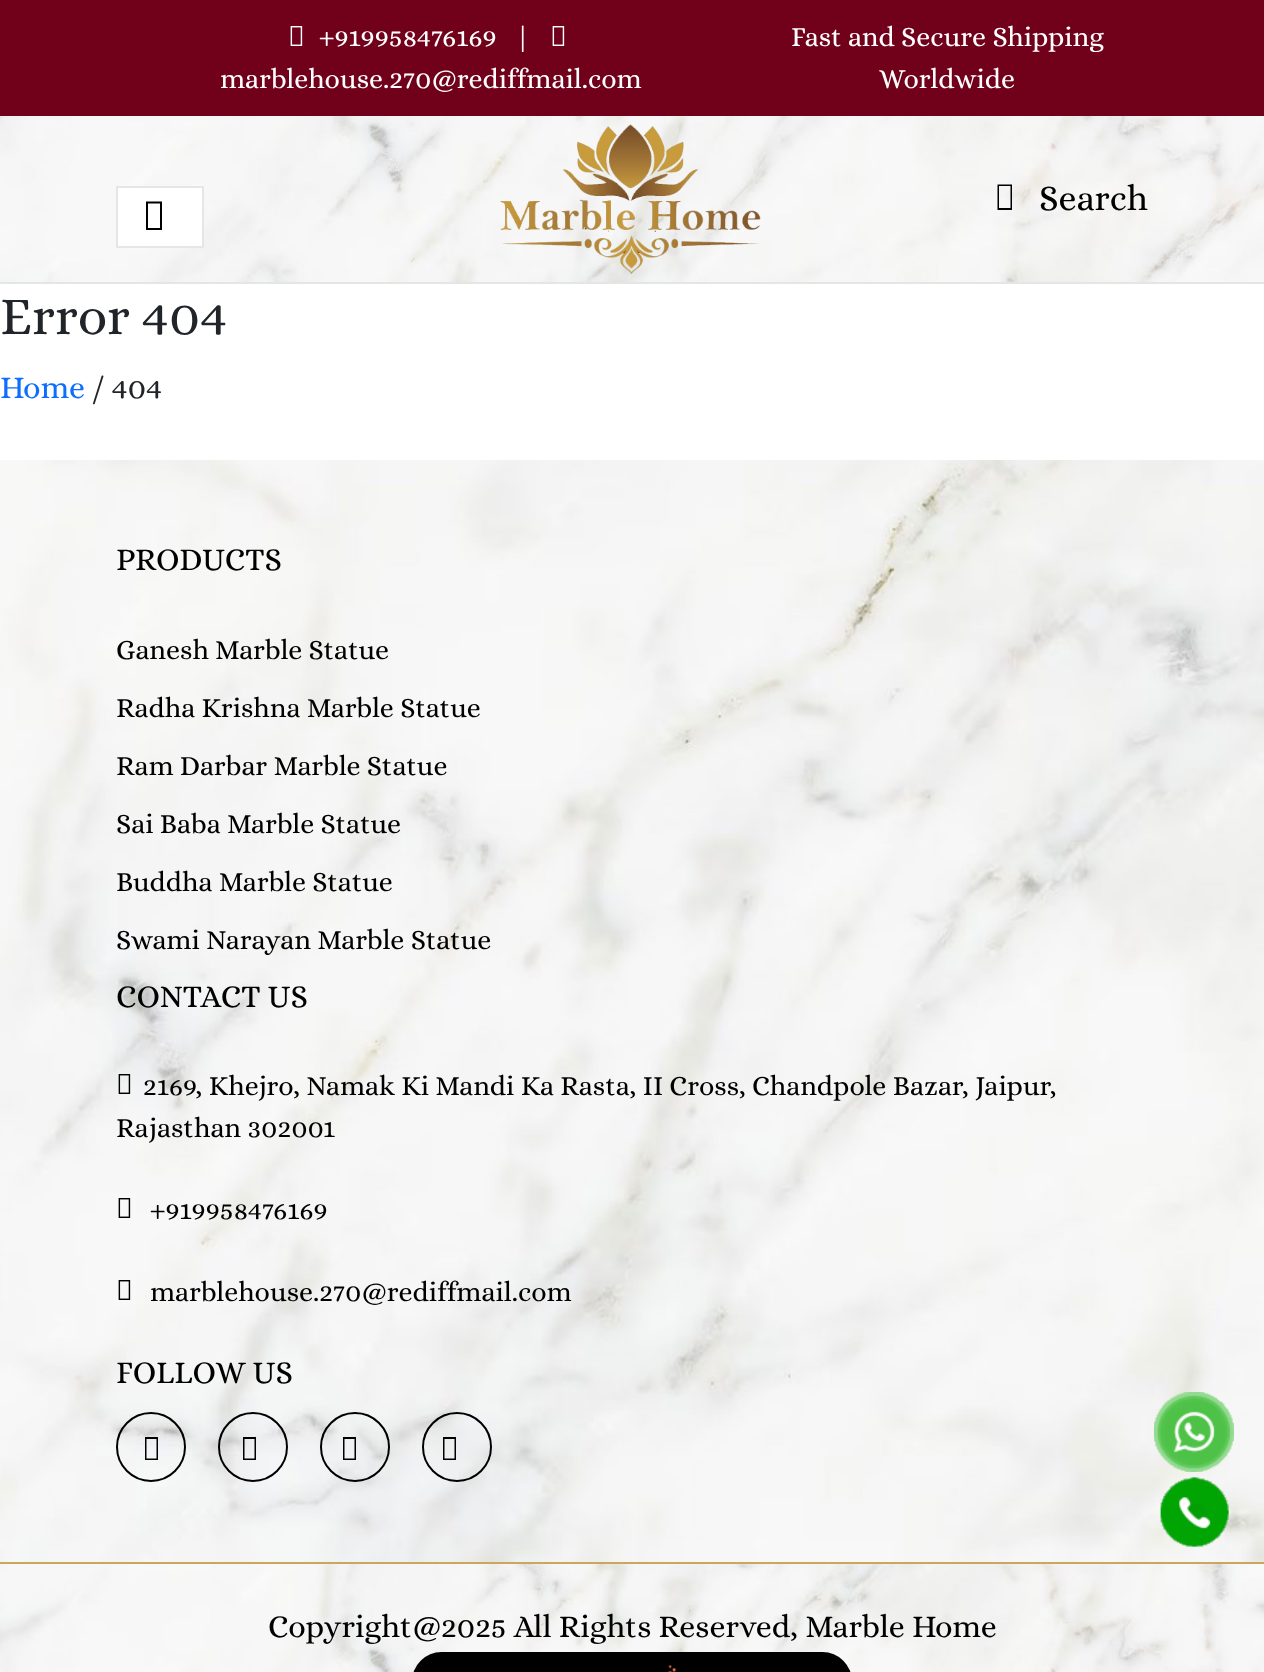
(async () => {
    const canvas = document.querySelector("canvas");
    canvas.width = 1264;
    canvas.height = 1672;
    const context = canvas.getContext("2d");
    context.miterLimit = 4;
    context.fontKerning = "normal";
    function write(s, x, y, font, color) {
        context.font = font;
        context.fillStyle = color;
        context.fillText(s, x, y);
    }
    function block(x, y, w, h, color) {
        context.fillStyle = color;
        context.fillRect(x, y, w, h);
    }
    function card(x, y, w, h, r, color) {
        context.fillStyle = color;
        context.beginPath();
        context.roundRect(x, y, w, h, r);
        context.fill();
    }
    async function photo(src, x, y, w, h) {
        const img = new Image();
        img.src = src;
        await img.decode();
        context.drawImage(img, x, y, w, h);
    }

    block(0, 0, 1264, 1672, "rgb(255, 255, 255)");
    await photo("media/1.png", 0, 116, 1264, 166);
    block(0, 0, 1264, 116, "rgb(113, 0, 27)");
    await photo("media/2.png", 290, 26, 13, 20);
    write("+919958476169", 319, 46, "28px Alice", "rgb(255, 255, 255)");
    write("|", 515, 46, "28px Alice", "rgb(255, 255, 255)");
    await photo("media/2.png", 552, 26, 13, 20);
    write("marblehouse.270@rediffmail.com", 220, 88, "28px Alice", "rgb(255, 255, 255)");
    write("Fast and Secure Shipping", 791, 46, "28px Alice", "rgb(255, 255, 255)");
    write("Worldwide", 879, 88, "28px Alice", "rgb(255, 255, 255)");
    context.beginPath();
    context.rect(117, 187, 86, 60);
    context.fill();
    context.strokeStyle = "rgb(230, 230, 230)";
    context.lineWidth = 2;
    context.stroke();
    context.fillStyle = "rgb(0, 0, 0)";
    context.beginPath();
    context.moveTo(146, 230);
    context.lineTo(146, 201.5);
    context.lineTo(162, 201.5);
    context.lineTo(162, 230);
    context.closePath();
    context.moveTo(148, 228);
    context.lineTo(160, 228);
    context.lineTo(160, 203.5);
    context.lineTo(148, 203.5);
    context.closePath();
    context.fill();
    block(0, 282, 1264, 2, "rgb(229, 229, 229)");
    await photo("media/3.png", 500, 124, 261, 150);
    context.fillStyle = "rgb(0, 0, 0)";
    context.beginPath();
    context.moveTo(997.5, 210);
    context.lineTo(997.5, 184.5);
    context.lineTo(1012, 184.5);
    context.lineTo(1012, 210);
    context.closePath();
    context.moveTo(999, 208);
    context.lineTo(1010.5, 208);
    context.lineTo(1010.5, 186);
    context.lineTo(999, 186);
    context.closePath();
    context.fill();
    write("Search", 1039, 210, "36px Alice", "rgb(0, 0, 0)");
    write("Error 404", 0, 334, "54px Alice", "rgb(33, 37, 41)");
    write("Home", 0, 398, "32px Alice", "rgb(13, 110, 253)");
    write("/ 404", 92, 398, "32px Alice", "rgb(33, 37, 41)");
    await photo("media/4.png", 0, 460, 1264, 1102);
    write("PRODUCTS", 116, 570, "32px Alice", "rgb(0, 0, 0)");
    write("Ganesh Marble Statue", 116, 659, "28px Alice", "rgb(0, 0, 0)");
    write("Radha Krishna Marble Statue", 116, 717, "28px Alice", "rgb(0, 0, 0)");
    write("Ram Darbar Marble Statue", 116, 775, "28px Alice", "rgb(0, 0, 0)");
    write("Sai Baba Marble Statue", 116, 833, "28px Alice", "rgb(0, 0, 0)");
    write("Buddha Marble Statue", 116, 891, "28px Alice", "rgb(0, 0, 0)");
    write("Swami Narayan Marble Statue", 116, 949, "28px Alice", "rgb(0, 0, 0)");
    write("CONTACT US", 116, 1007, "32px Alice", "rgb(0, 0, 0)");
    await photo("media/5.png", 118, 1074, 13, 20);
    write("2169, Khejro, Namak Ki Mandi Ka Rasta, II Cross, Chandpole Bazar, Jaipur,", 143, 1095, "28px Alice", "rgb(0, 0, 0)");
    write("Rajasthan 302001", 116, 1137, "28px Alice", "rgb(0, 0, 0)");
    await photo("media/6.png", 118, 1198, 13, 20);
    write("+919958476169", 150, 1219, "28px Alice", "rgb(0, 0, 0)");
    await photo("media/6.png", 118, 1280, 13, 20);
    write("marblehouse.270@rediffmail.com", 150, 1301, "28px Alice", "rgb(0, 0, 0)");
    write("FOLLOW US", 116, 1383, "32px Alice", "rgb(0, 0, 0)");
    context.beginPath();
    context.arc(151, 1447, 34, 0, Math.PI * 2);
    context.strokeStyle = "rgb(0, 0, 0)";
    context.stroke();
    context.beginPath();
    context.moveTo(145, 1460);
    context.lineTo(145, 1437);
    context.lineTo(158, 1437);
    context.lineTo(158, 1460);
    context.closePath();
    context.moveTo(146.5, 1458.5);
    context.lineTo(156.5, 1458.5);
    context.lineTo(156.5, 1439);
    context.lineTo(146.5, 1439);
    context.closePath();
    context.fill();
    context.beginPath();
    context.arc(253, 1447, 34, 0, Math.PI * 2);
    context.stroke();
    context.beginPath();
    context.moveTo(243, 1460);
    context.lineTo(243, 1437);
    context.lineTo(256, 1437);
    context.lineTo(256, 1460);
    context.closePath();
    context.moveTo(244.5, 1458.5);
    context.lineTo(254.5, 1458.5);
    context.lineTo(254.5, 1439);
    context.lineTo(244.5, 1439);
    context.closePath();
    context.fill();
    context.beginPath();
    context.arc(355, 1447, 34, 0, Math.PI * 2);
    context.stroke();
    context.beginPath();
    context.moveTo(343, 1460);
    context.lineTo(343, 1437);
    context.lineTo(356, 1437);
    context.lineTo(356, 1460);
    context.closePath();
    context.moveTo(344.5, 1458.5);
    context.lineTo(354.5, 1458.5);
    context.lineTo(354.5, 1439);
    context.lineTo(344.5, 1439);
    context.closePath();
    context.fill();
    context.beginPath();
    context.arc(457, 1447, 34, 0, Math.PI * 2);
    context.stroke();
    context.beginPath();
    context.moveTo(443, 1460);
    context.lineTo(443, 1437);
    context.lineTo(456, 1437);
    context.lineTo(456, 1460);
    context.closePath();
    context.moveTo(444.5, 1458.5);
    context.lineTo(454.5, 1458.5);
    context.lineTo(454.5, 1439);
    context.lineTo(444.5, 1439);
    context.closePath();
    context.fill();
    await photo("media/7.png", 0, 1564, 1264, 108);
    block(0, 1562, 1264, 2, "rgb(205, 166, 94)");
    write("Copyright@2025 All Rights Reserved, Marble Home", 268, 1637, "32px Alice", "rgb(0, 0, 0)");
    card(412, 1652, 440, 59, 39, "rgb(0, 0, 0)");
    await photo("media/8.png", 667, 1665, 10, 7);
    await photo("media/9.png", 1154, 1392, 80, 80);
    await photo("media/10.png", 1160, 1477, 69, 70);
})();
